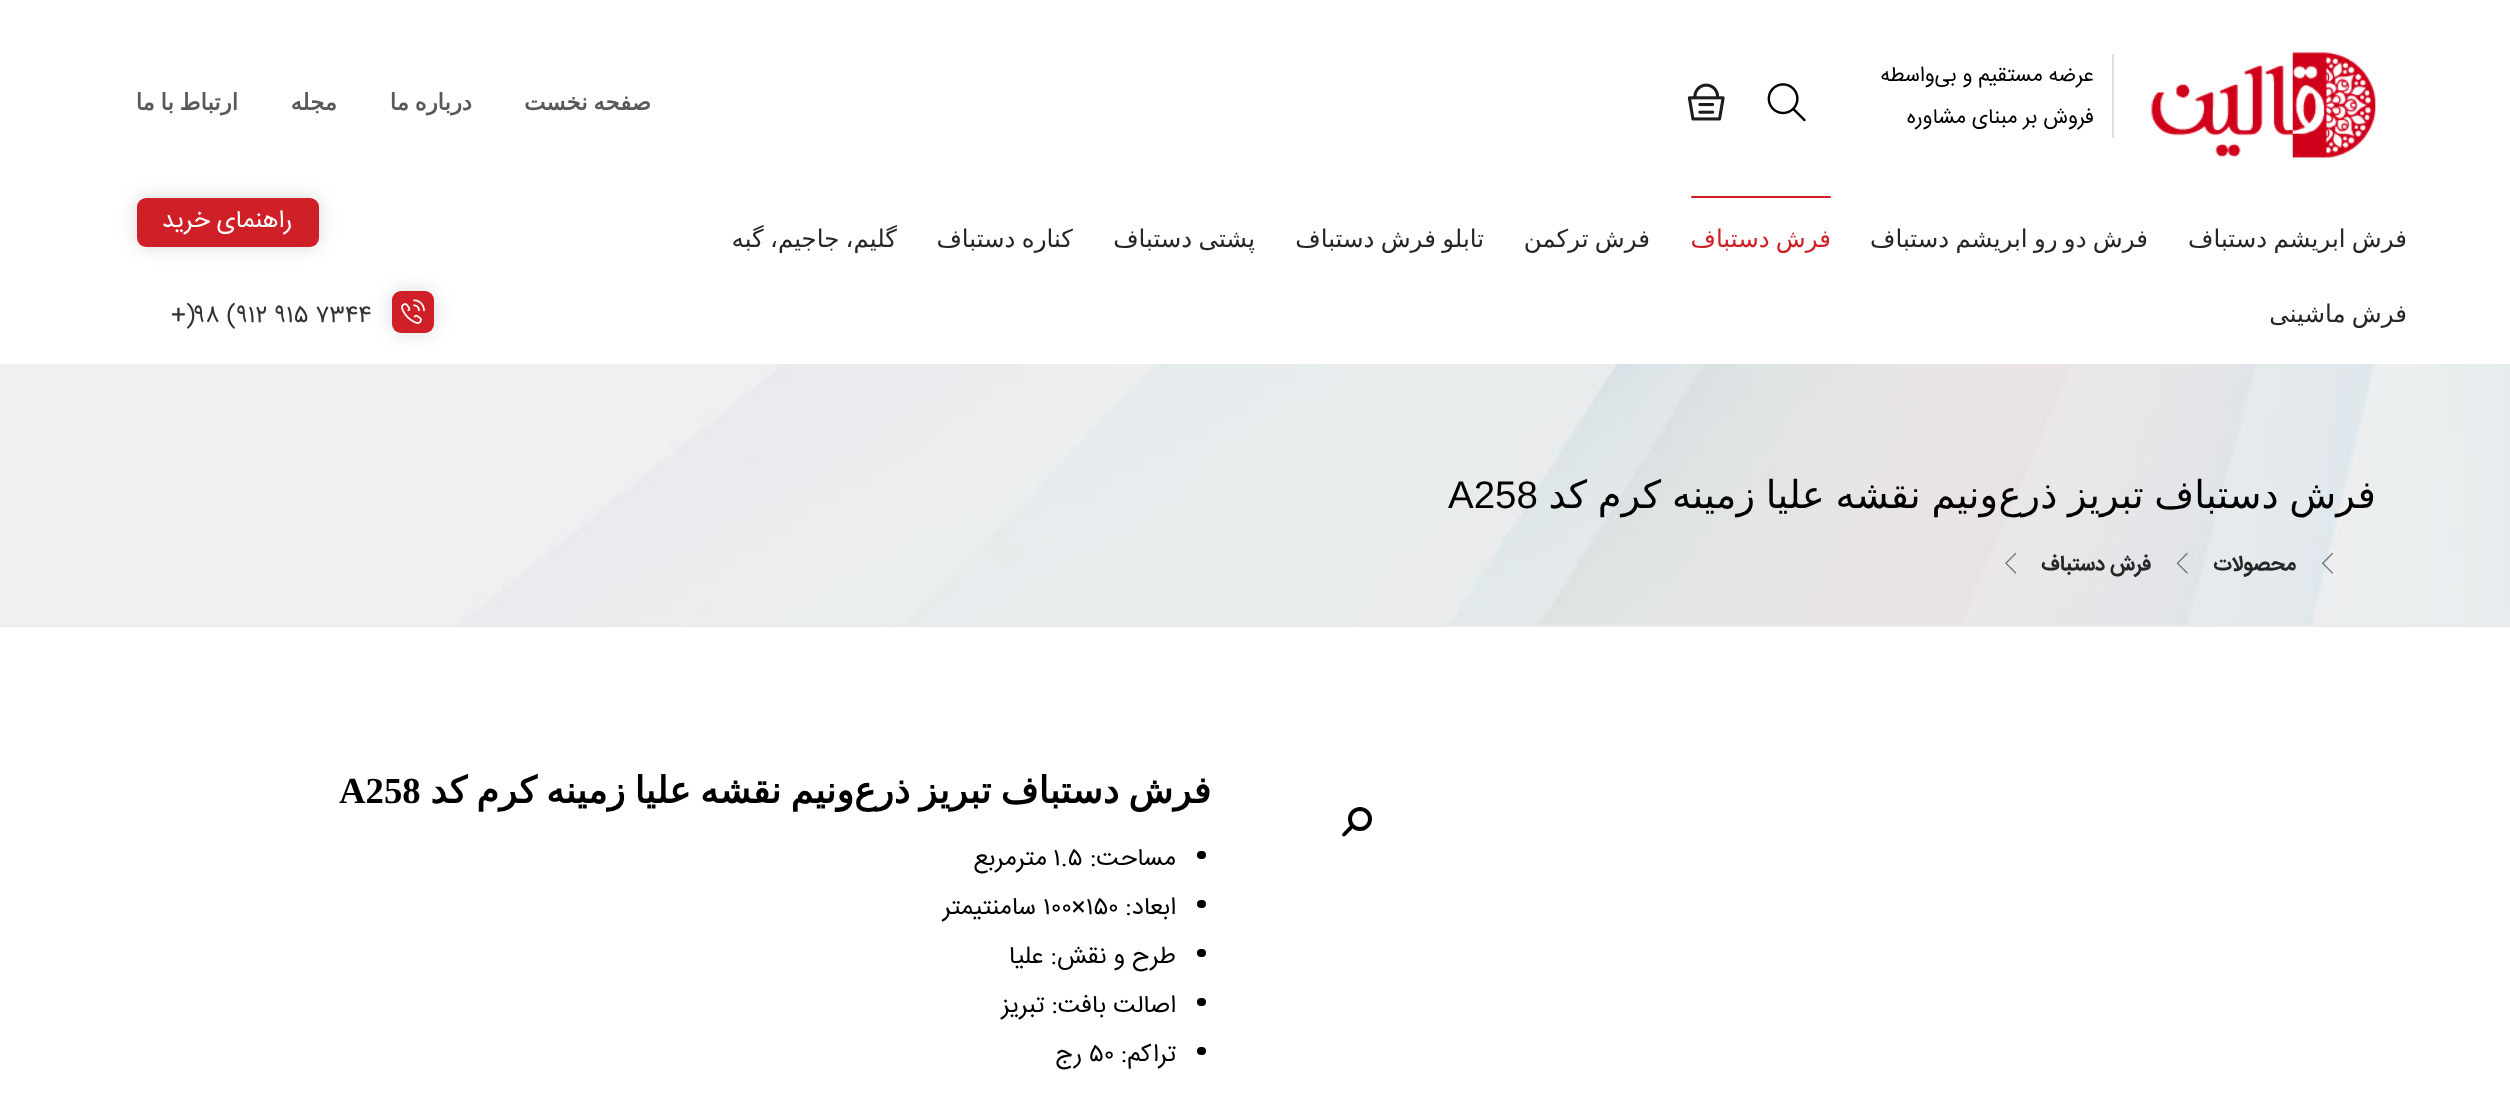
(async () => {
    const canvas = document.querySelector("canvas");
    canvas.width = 2510;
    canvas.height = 1096;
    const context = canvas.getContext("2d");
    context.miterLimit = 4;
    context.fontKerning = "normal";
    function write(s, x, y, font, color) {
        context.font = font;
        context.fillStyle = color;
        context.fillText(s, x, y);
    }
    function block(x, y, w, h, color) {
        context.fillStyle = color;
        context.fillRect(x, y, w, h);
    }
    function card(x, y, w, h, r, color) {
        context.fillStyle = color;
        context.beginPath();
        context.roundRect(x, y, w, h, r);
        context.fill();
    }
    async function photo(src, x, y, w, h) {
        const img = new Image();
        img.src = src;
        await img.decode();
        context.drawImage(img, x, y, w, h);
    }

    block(0, 0, 2510, 1096, "rgb(255, 255, 255)");
    await photo("media/1.png", 2151, 52, 225, 106);
    block(2112, 54, 2, 84, "rgb(224, 224, 224)");
    context.direction = "rtl";
    write("عرضه مستقیم و بی‌واسطه", 2094, 81, "21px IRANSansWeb", "rgb(0, 0, 0)");
    write("فروش بر مبنای مشاوره", 2094, 123, "21px IRANSansWeb", "rgb(0, 0, 0)");
    await photo("media/2.png", 1767, 83, 39, 39);
    await photo("media/3.png", 1687, 83, 38, 38);
    context.wordSpacing = "-1.5px";
    write("صفحه نخست", 651, 110, "bold 22.75px DejaVu Sans", "rgb(89, 89, 89)");
    write("درباره ما", 472, 110, "bold 22.75px DejaVu Sans", "rgb(89, 89, 89)");
    context.wordSpacing = "0px";
    write("مجله", 337, 110, "bold 22.75px DejaVu Sans", "rgb(89, 89, 89)");
    context.wordSpacing = "-1.5px";
    write("ارتباط با ما", 238, 110, "bold 22.75px DejaVu Sans", "rgb(89, 89, 89)");
    write("فرش ابریشم دستباف", 2407, 247, "24.5px DejaVu Sans", "rgb(38, 38, 38)");
    write("فرش دو رو ابریشم دستباف", 2148, 247, "24.5px DejaVu Sans", "rgb(38, 38, 38)");
    card(1691, 196, 140, 2, 1, "rgb(207, 32, 39)");
    write("فرش دستباف", 1831, 247, "24.5px DejaVu Sans", "rgb(207, 32, 39)");
    write("فرش ترکمن", 1650, 247, "24.5px DejaVu Sans", "rgb(38, 38, 38)");
    write("تابلو فرش دستباف", 1484, 247, "24.5px DejaVu Sans", "rgb(38, 38, 38)");
    write("پشتی دستباف", 1255, 247, "24.5px DejaVu Sans", "rgb(38, 38, 38)");
    write("کناره دستباف", 1073, 247, "24.5px DejaVu Sans", "rgb(38, 38, 38)");
    write("گلیم، جاجیم، گبه", 897, 247, "24.5px DejaVu Sans", "rgb(38, 38, 38)");
    write("فرش ماشینی", 2407, 322, "24.5px DejaVu Sans", "rgb(38, 38, 38)");
    context.fillStyle = "rgba(0, 0, 0, 0.15)";
    context.filter = "blur(9px)";
    context.beginPath();
    context.roundRect(137, 198, 182, 49, 9);
    context.fill();
    context.filter = "none";
    card(137, 198, 182, 49, 9, "rgb(207, 32, 39)");
    context.wordSpacing = "0px";
    write("راهنمای خرید", 292, 227, "24.5px IRANSansWeb", "rgb(255, 255, 255)");
    context.fillStyle = "rgba(0, 0, 0, 0.15)";
    context.filter = "blur(9px)";
    context.beginPath();
    context.roundRect(392, 291, 42, 42, 9);
    context.fill();
    context.filter = "none";
    card(392, 291, 42, 42, 9, "rgb(207, 32, 39)");
    await photo("media/4.png", 401, 299, 24, 25);
    context.direction = "ltr";
    write("+)۹۸ (۹۱۲ ۹۱۵ ۷۳۴۴", 171, 322, "24.5px IRANSansWeb", "rgb(51, 51, 51)");
    await photo("media/5.png", 0, 364, 2510, 261);
    block(0, 625, 2510, 2, "rgb(234, 234, 234)");
    context.wordSpacing = "-1.5px";
    context.direction = "rtl";
    write("فرش دستباف تبریز ذرع", 2376, 508, "38.5px DejaVu Sans", "rgb(0, 0, 0)");
    write("ونیم نقشه علیا زمینه کرم کد", 1998, 508, "38.5px DejaVu Sans", "rgb(0, 0, 0)");
    context.wordSpacing = "0px";
    context.direction = "ltr";
    write("‌‌‌A258", 1448, 508, "38.5px Liberation Sans", "rgb(0, 0, 0)");
    await photo("media/6.png", 2322, 552, 11, 22);
    context.direction = "rtl";
    write("محصولات", 2296, 570, "bold 21px IRANSansWeb", "rgb(38, 38, 38)");
    await photo("media/7.png", 2176, 552, 12, 22);
    write("فرش دستباف", 2151, 570, "bold 21px IRANSansWeb", "rgb(38, 38, 38)");
    await photo("media/8.png", 2005, 552, 12, 22);
    context.beginPath();
    context.arc(1360, 819, 10, 0, Math.PI * 2);
    context.strokeStyle = "rgb(0, 0, 0)";
    context.lineWidth = 4;
    context.stroke();
    context.fillStyle = "rgb(0, 0, 0)";
    context.beginPath();
    context.moveTo(1352.5, 826);
    context.bezierCurveTo(1354.5, 828, 1350, 831, 1349, 832);
    context.bezierCurveTo(1348, 833, 1344.5, 838, 1342.5, 836);
    context.bezierCurveTo(1341, 834, 1345.5, 830.5, 1346.5, 829.5);
    context.bezierCurveTo(1347.5, 828.5, 1350.5, 824, 1352.5, 826);
    context.closePath();
    context.fill();
    context.wordSpacing = "-2.5px";
    write("فرش دستباف تبریز ذرع", 1211, 803, "bold 36.75px DejaVu Sans", "rgb(0, 0, 0)");
    write("ونیم نقشه علیا زمینه کرم کد", 854, 803, "bold 36.75px DejaVu Sans", "rgb(0, 0, 0)");
    context.wordSpacing = "0px";
    context.direction = "ltr";
    write("‌‌‌A258", 339, 803, "bold 36.75px Liberation Serif", "rgb(0, 0, 0)");
    card(1197, 851, 9, 8, 4, "rgb(0, 0, 0)");
    context.direction = "rtl";
    write("مساحت:", 1176, 865, "24.5px IRANSansWeb", "rgb(0, 0, 0)");
    context.direction = "ltr";
    write("۱.۵", 1053, 865, "24.5px IRANSansWeb", "rgb(0, 0, 0)");
    context.direction = "rtl";
    write("مترمربع", 1047, 865, "24.5px IRANSansWeb", "rgb(0, 0, 0)");
    card(1197, 900, 9, 8, 4, "rgb(0, 0, 0)");
    write("ابعاد:", 1176, 914, "24.5px IRANSansWeb", "rgb(0, 0, 0)");
    context.direction = "ltr";
    write("۱۰۰×۱۵۰", 1043, 914, "24.5px IRANSansWeb", "rgb(0, 0, 0)");
    context.direction = "rtl";
    write("سامنتیمتر", 1036, 914, "24.5px IRANSansWeb", "rgb(0, 0, 0)");
    card(1197, 949, 9, 8, 4, "rgb(0, 0, 0)");
    write("طرح و نقش: علیا", 1176, 963, "24.5px IRANSansWeb", "rgb(0, 0, 0)");
    card(1197, 998, 9, 8, 4, "rgb(0, 0, 0)");
    write("اصالت بافت: تبریز", 1176, 1012, "24.5px IRANSansWeb", "rgb(0, 0, 0)");
    card(1197, 1047, 9, 8, 4, "rgb(0, 0, 0)");
    write("تراکم:", 1176, 1061, "24.5px IRANSansWeb", "rgb(0, 0, 0)");
    context.direction = "ltr";
    write("۵۰", 1089, 1061, "24.5px IRANSansWeb", "rgb(0, 0, 0)");
    context.direction = "rtl";
    write("رج", 1082, 1061, "24.5px IRANSansWeb", "rgb(0, 0, 0)");
})();
